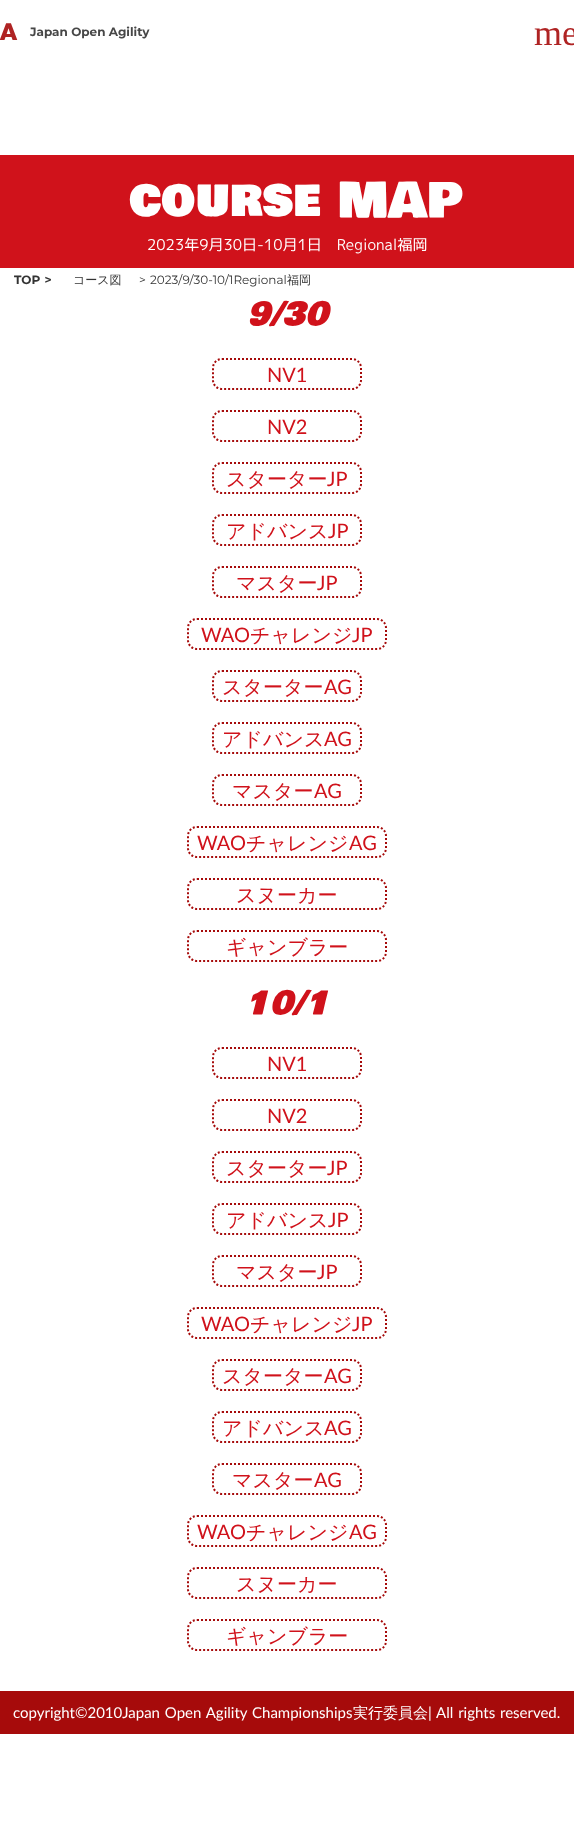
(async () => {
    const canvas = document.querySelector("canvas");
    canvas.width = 574;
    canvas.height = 1824;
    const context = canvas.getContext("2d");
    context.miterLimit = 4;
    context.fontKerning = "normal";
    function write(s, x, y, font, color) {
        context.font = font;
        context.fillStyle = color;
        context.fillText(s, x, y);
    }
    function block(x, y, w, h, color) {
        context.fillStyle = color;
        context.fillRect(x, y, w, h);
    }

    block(0, 0, 574, 1824, "rgb(255, 255, 255)");
    write("A", 0, 40, "24px Russo One", "rgb(175, 35, 35)");
    write("Japan Open Agility", 30, 36, "bold 12px Montserrat", "rgb(71, 71, 71)");
    write("me", 534, 45, "36px Liberation Serif", "rgb(175, 35, 35)");
    block(0, 155, 574, 113, "rgb(208, 18, 27)");
    context.wordSpacing = "2px";
    write("course MAP", 129, 217, "48px Bowlby One SC", "rgb(255, 255, 255)");
    context.wordSpacing = "0px";
    write("2023年9月30日-10月1日　Regional福岡", 147, 250, "15px 'M PLUS 1p'", "rgb(255, 255, 255)");
    context.wordSpacing = "1px";
    write("TOP >", 14, 284, "bold 12px Montserrat", "rgb(51, 51, 51)");
    context.wordSpacing = "0px";
    write("コース図", 73, 284, "500 12px WenQuanYi Zen Hei", "rgb(51, 51, 51)");
    context.wordSpacing = "1px";
    write("> 2023/9/30-10/1Regional", 139, 284, "12px Montserrat", "rgb(51, 51, 51)");
    context.wordSpacing = "0px";
    write("福岡", 287, 284, "500 12px WenQuanYi Zen Hei", "rgb(51, 51, 51)");
    write("9/30", 247, 325, "italic 32px Bowlby One SC", "rgb(208, 18, 27)");
    context.beginPath();
    context.moveTo(222, 359);
    context.lineTo(352, 359);
    context.bezierCurveTo(357, 359, 361, 363, 361, 368);
    context.lineTo(361, 380);
    context.bezierCurveTo(361, 385, 357, 389, 352, 389);
    context.lineTo(222, 389);
    context.bezierCurveTo(217, 389, 213, 385, 213, 380);
    context.lineTo(213, 368);
    context.bezierCurveTo(213, 363, 217, 359, 222, 359);
    context.closePath();
    context.strokeStyle = "rgb(166, 11, 11)";
    context.lineWidth = 2;
    context.setLineDash([2, 2]);
    context.stroke();
    write("NV1", 267, 382, "20px Lato", "rgb(208, 18, 27)");
    context.beginPath();
    context.moveTo(222, 411);
    context.lineTo(352, 411);
    context.bezierCurveTo(357, 411, 361, 415, 361, 420);
    context.lineTo(361, 432);
    context.bezierCurveTo(361, 437, 357, 441, 352, 441);
    context.lineTo(222, 441);
    context.bezierCurveTo(217, 441, 213, 437, 213, 432);
    context.lineTo(213, 420);
    context.bezierCurveTo(213, 415, 217, 411, 222, 411);
    context.closePath();
    context.stroke();
    write("NV2", 267, 434, "20px Lato", "rgb(208, 18, 27)");
    context.beginPath();
    context.moveTo(222, 463);
    context.lineTo(352, 463);
    context.bezierCurveTo(357, 463, 361, 467, 361, 472);
    context.lineTo(361, 484);
    context.bezierCurveTo(361, 489, 357, 493, 352, 493);
    context.lineTo(222, 493);
    context.bezierCurveTo(217, 493, 213, 489, 213, 484);
    context.lineTo(213, 472);
    context.bezierCurveTo(213, 467, 217, 463, 222, 463);
    context.closePath();
    context.stroke();
    write("スターター", 226, 486, "500 20px WenQuanYi Zen Hei", "rgb(208, 18, 27)");
    write("JP", 327, 486, "20px Lato", "rgb(208, 18, 27)");
    context.beginPath();
    context.moveTo(222, 515);
    context.lineTo(352, 515);
    context.bezierCurveTo(357, 515, 361, 519, 361, 524);
    context.lineTo(361, 536);
    context.bezierCurveTo(361, 541, 357, 545, 352, 545);
    context.lineTo(222, 545);
    context.bezierCurveTo(217, 545, 213, 541, 213, 536);
    context.lineTo(213, 524);
    context.bezierCurveTo(213, 519, 217, 515, 222, 515);
    context.closePath();
    context.stroke();
    write("アドバンス", 226, 538, "500 20px WenQuanYi Zen Hei", "rgb(208, 18, 27)");
    write("JP", 328, 538, "20px Lato", "rgb(208, 18, 27)");
    context.beginPath();
    context.moveTo(222, 567);
    context.lineTo(352, 567);
    context.bezierCurveTo(357, 567, 361, 571, 361, 576);
    context.lineTo(361, 588);
    context.bezierCurveTo(361, 593, 357, 597, 352, 597);
    context.lineTo(222, 597);
    context.bezierCurveTo(217, 597, 213, 593, 213, 588);
    context.lineTo(213, 576);
    context.bezierCurveTo(213, 571, 217, 567, 222, 567);
    context.closePath();
    context.stroke();
    write("マスター", 236, 590, "500 20px WenQuanYi Zen Hei", "rgb(208, 18, 27)");
    write("JP", 317, 590, "20px Lato", "rgb(208, 18, 27)");
    context.beginPath();
    context.moveTo(197, 619);
    context.lineTo(377, 619);
    context.bezierCurveTo(382, 619, 386, 623, 386, 628);
    context.lineTo(386, 640);
    context.bezierCurveTo(386, 645, 382, 649, 377, 649);
    context.lineTo(197, 649);
    context.bezierCurveTo(192, 649, 188, 645, 188, 640);
    context.lineTo(188, 628);
    context.bezierCurveTo(188, 623, 192, 619, 197, 619);
    context.closePath();
    context.stroke();
    write("WAO", 201, 642, "20px Lato", "rgb(208, 18, 27)");
    write("チャレンジ", 250, 642, "500 20px WenQuanYi Zen Hei", "rgb(208, 18, 27)");
    write("JP", 352, 642, "20px Lato", "rgb(208, 18, 27)");
    context.beginPath();
    context.moveTo(222, 671);
    context.lineTo(352, 671);
    context.bezierCurveTo(357, 671, 361, 675, 361, 680);
    context.lineTo(361, 692);
    context.bezierCurveTo(361, 697, 357, 701, 352, 701);
    context.lineTo(222, 701);
    context.bezierCurveTo(217, 701, 213, 697, 213, 692);
    context.lineTo(213, 680);
    context.bezierCurveTo(213, 675, 217, 671, 222, 671);
    context.closePath();
    context.stroke();
    write("スターター", 222, 694, "500 20px WenQuanYi Zen Hei", "rgb(208, 18, 27)");
    write("AG", 324, 694, "20px Lato", "rgb(208, 18, 27)");
    context.beginPath();
    context.moveTo(222, 723);
    context.lineTo(352, 723);
    context.bezierCurveTo(357, 723, 361, 727, 361, 732);
    context.lineTo(361, 744);
    context.bezierCurveTo(361, 749, 357, 753, 352, 753);
    context.lineTo(222, 753);
    context.bezierCurveTo(217, 753, 213, 749, 213, 744);
    context.lineTo(213, 732);
    context.bezierCurveTo(213, 727, 217, 723, 222, 723);
    context.closePath();
    context.stroke();
    write("アドバンス", 222, 746, "500 20px WenQuanYi Zen Hei", "rgb(208, 18, 27)");
    write("AG", 324, 746, "20px Lato", "rgb(208, 18, 27)");
    context.beginPath();
    context.moveTo(222, 775);
    context.lineTo(352, 775);
    context.bezierCurveTo(357, 775, 361, 779, 361, 784);
    context.lineTo(361, 796);
    context.bezierCurveTo(361, 801, 357, 805, 352, 805);
    context.lineTo(222, 805);
    context.bezierCurveTo(217, 805, 213, 801, 213, 796);
    context.lineTo(213, 784);
    context.bezierCurveTo(213, 779, 217, 775, 222, 775);
    context.closePath();
    context.stroke();
    write("マスター", 232, 798, "500 20px WenQuanYi Zen Hei", "rgb(208, 18, 27)");
    write("AG", 314, 798, "20px Lato", "rgb(208, 18, 27)");
    context.beginPath();
    context.moveTo(197, 827);
    context.lineTo(377, 827);
    context.bezierCurveTo(382, 827, 386, 831, 386, 836);
    context.lineTo(386, 848);
    context.bezierCurveTo(386, 853, 382, 857, 377, 857);
    context.lineTo(197, 857);
    context.bezierCurveTo(192, 857, 188, 853, 188, 848);
    context.lineTo(188, 836);
    context.bezierCurveTo(188, 831, 192, 827, 197, 827);
    context.closePath();
    context.stroke();
    write("WAO", 197, 850, "20px Lato", "rgb(208, 18, 27)");
    write("チャレンジ", 246, 850, "500 20px WenQuanYi Zen Hei", "rgb(208, 18, 27)");
    write("AG", 349, 850, "20px Lato", "rgb(208, 18, 27)");
    context.beginPath();
    context.moveTo(197, 879);
    context.lineTo(377, 879);
    context.bezierCurveTo(382, 879, 386, 883, 386, 888);
    context.lineTo(386, 900);
    context.bezierCurveTo(386, 905, 382, 909, 377, 909);
    context.lineTo(197, 909);
    context.bezierCurveTo(192, 909, 188, 905, 188, 900);
    context.lineTo(188, 888);
    context.bezierCurveTo(188, 883, 192, 879, 197, 879);
    context.closePath();
    context.stroke();
    write("スヌーカー", 236, 902, "500 20px WenQuanYi Zen Hei", "rgb(208, 18, 27)");
    context.beginPath();
    context.moveTo(197, 931);
    context.lineTo(377, 931);
    context.bezierCurveTo(382, 931, 386, 935, 386, 940);
    context.lineTo(386, 952);
    context.bezierCurveTo(386, 957, 382, 961, 377, 961);
    context.lineTo(197, 961);
    context.bezierCurveTo(192, 961, 188, 957, 188, 952);
    context.lineTo(188, 940);
    context.bezierCurveTo(188, 935, 192, 931, 197, 931);
    context.closePath();
    context.stroke();
    write("ギャンブラー", 226, 954, "500 20px WenQuanYi Zen Hei", "rgb(208, 18, 27)");
    write("10/1", 245, 1014, "italic 32px Bowlby One SC", "rgb(208, 18, 27)");
    context.beginPath();
    context.moveTo(222, 1048);
    context.lineTo(352, 1048);
    context.bezierCurveTo(357, 1048, 361, 1052, 361, 1057);
    context.lineTo(361, 1069);
    context.bezierCurveTo(361, 1074, 357, 1078, 352, 1078);
    context.lineTo(222, 1078);
    context.bezierCurveTo(217, 1078, 213, 1074, 213, 1069);
    context.lineTo(213, 1057);
    context.bezierCurveTo(213, 1052, 217, 1048, 222, 1048);
    context.closePath();
    context.stroke();
    write("NV1", 267, 1071, "20px Lato", "rgb(208, 18, 27)");
    context.beginPath();
    context.moveTo(222, 1100);
    context.lineTo(352, 1100);
    context.bezierCurveTo(357, 1100, 361, 1104, 361, 1109);
    context.lineTo(361, 1121);
    context.bezierCurveTo(361, 1126, 357, 1130, 352, 1130);
    context.lineTo(222, 1130);
    context.bezierCurveTo(217, 1130, 213, 1126, 213, 1121);
    context.lineTo(213, 1109);
    context.bezierCurveTo(213, 1104, 217, 1100, 222, 1100);
    context.closePath();
    context.stroke();
    write("NV2", 267, 1123, "20px Lato", "rgb(208, 18, 27)");
    context.beginPath();
    context.moveTo(222, 1152);
    context.lineTo(352, 1152);
    context.bezierCurveTo(357, 1152, 361, 1156, 361, 1161);
    context.lineTo(361, 1173);
    context.bezierCurveTo(361, 1178, 357, 1182, 352, 1182);
    context.lineTo(222, 1182);
    context.bezierCurveTo(217, 1182, 213, 1178, 213, 1173);
    context.lineTo(213, 1161);
    context.bezierCurveTo(213, 1156, 217, 1152, 222, 1152);
    context.closePath();
    context.stroke();
    write("スターター", 226, 1175, "500 20px WenQuanYi Zen Hei", "rgb(208, 18, 27)");
    write("JP", 327, 1175, "20px Lato", "rgb(208, 18, 27)");
    context.beginPath();
    context.moveTo(222, 1204);
    context.lineTo(352, 1204);
    context.bezierCurveTo(357, 1204, 361, 1208, 361, 1213);
    context.lineTo(361, 1225);
    context.bezierCurveTo(361, 1230, 357, 1234, 352, 1234);
    context.lineTo(222, 1234);
    context.bezierCurveTo(217, 1234, 213, 1230, 213, 1225);
    context.lineTo(213, 1213);
    context.bezierCurveTo(213, 1208, 217, 1204, 222, 1204);
    context.closePath();
    context.stroke();
    write("アドバンス", 226, 1227, "500 20px WenQuanYi Zen Hei", "rgb(208, 18, 27)");
    write("JP", 328, 1227, "20px Lato", "rgb(208, 18, 27)");
    context.beginPath();
    context.moveTo(222, 1256);
    context.lineTo(352, 1256);
    context.bezierCurveTo(357, 1256, 361, 1260, 361, 1265);
    context.lineTo(361, 1277);
    context.bezierCurveTo(361, 1282, 357, 1286, 352, 1286);
    context.lineTo(222, 1286);
    context.bezierCurveTo(217, 1286, 213, 1282, 213, 1277);
    context.lineTo(213, 1265);
    context.bezierCurveTo(213, 1260, 217, 1256, 222, 1256);
    context.closePath();
    context.stroke();
    write("マスター", 236, 1279, "500 20px WenQuanYi Zen Hei", "rgb(208, 18, 27)");
    write("JP", 317, 1279, "20px Lato", "rgb(208, 18, 27)");
    context.beginPath();
    context.moveTo(197, 1308);
    context.lineTo(377, 1308);
    context.bezierCurveTo(382, 1308, 386, 1312, 386, 1317);
    context.lineTo(386, 1329);
    context.bezierCurveTo(386, 1334, 382, 1338, 377, 1338);
    context.lineTo(197, 1338);
    context.bezierCurveTo(192, 1338, 188, 1334, 188, 1329);
    context.lineTo(188, 1317);
    context.bezierCurveTo(188, 1312, 192, 1308, 197, 1308);
    context.closePath();
    context.stroke();
    write("WAO", 201, 1331, "20px Lato", "rgb(208, 18, 27)");
    write("チャレンジ", 250, 1331, "500 20px WenQuanYi Zen Hei", "rgb(208, 18, 27)");
    write("JP", 352, 1331, "20px Lato", "rgb(208, 18, 27)");
    context.beginPath();
    context.moveTo(222, 1360);
    context.lineTo(352, 1360);
    context.bezierCurveTo(357, 1360, 361, 1364, 361, 1369);
    context.lineTo(361, 1381);
    context.bezierCurveTo(361, 1386, 357, 1390, 352, 1390);
    context.lineTo(222, 1390);
    context.bezierCurveTo(217, 1390, 213, 1386, 213, 1381);
    context.lineTo(213, 1369);
    context.bezierCurveTo(213, 1364, 217, 1360, 222, 1360);
    context.closePath();
    context.stroke();
    write("スターター", 222, 1383, "500 20px WenQuanYi Zen Hei", "rgb(208, 18, 27)");
    write("AG", 324, 1383, "20px Lato", "rgb(208, 18, 27)");
    context.beginPath();
    context.moveTo(222, 1412);
    context.lineTo(352, 1412);
    context.bezierCurveTo(357, 1412, 361, 1416, 361, 1421);
    context.lineTo(361, 1433);
    context.bezierCurveTo(361, 1438, 357, 1442, 352, 1442);
    context.lineTo(222, 1442);
    context.bezierCurveTo(217, 1442, 213, 1438, 213, 1433);
    context.lineTo(213, 1421);
    context.bezierCurveTo(213, 1416, 217, 1412, 222, 1412);
    context.closePath();
    context.stroke();
    write("アドバンス", 222, 1435, "500 20px WenQuanYi Zen Hei", "rgb(208, 18, 27)");
    write("AG", 324, 1435, "20px Lato", "rgb(208, 18, 27)");
    context.beginPath();
    context.moveTo(222, 1464);
    context.lineTo(352, 1464);
    context.bezierCurveTo(357, 1464, 361, 1468, 361, 1473);
    context.lineTo(361, 1485);
    context.bezierCurveTo(361, 1490, 357, 1494, 352, 1494);
    context.lineTo(222, 1494);
    context.bezierCurveTo(217, 1494, 213, 1490, 213, 1485);
    context.lineTo(213, 1473);
    context.bezierCurveTo(213, 1468, 217, 1464, 222, 1464);
    context.closePath();
    context.stroke();
    write("マスター", 232, 1487, "500 20px WenQuanYi Zen Hei", "rgb(208, 18, 27)");
    write("AG", 314, 1487, "20px Lato", "rgb(208, 18, 27)");
    context.beginPath();
    context.moveTo(197, 1516);
    context.lineTo(377, 1516);
    context.bezierCurveTo(382, 1516, 386, 1520, 386, 1525);
    context.lineTo(386, 1537);
    context.bezierCurveTo(386, 1542, 382, 1546, 377, 1546);
    context.lineTo(197, 1546);
    context.bezierCurveTo(192, 1546, 188, 1542, 188, 1537);
    context.lineTo(188, 1525);
    context.bezierCurveTo(188, 1520, 192, 1516, 197, 1516);
    context.closePath();
    context.stroke();
    write("WAO", 197, 1539, "20px Lato", "rgb(208, 18, 27)");
    write("チャレンジ", 246, 1539, "500 20px WenQuanYi Zen Hei", "rgb(208, 18, 27)");
    write("AG", 349, 1539, "20px Lato", "rgb(208, 18, 27)");
    context.beginPath();
    context.moveTo(197, 1568);
    context.lineTo(377, 1568);
    context.bezierCurveTo(382, 1568, 386, 1572, 386, 1577);
    context.lineTo(386, 1589);
    context.bezierCurveTo(386, 1594, 382, 1598, 377, 1598);
    context.lineTo(197, 1598);
    context.bezierCurveTo(192, 1598, 188, 1594, 188, 1589);
    context.lineTo(188, 1577);
    context.bezierCurveTo(188, 1572, 192, 1568, 197, 1568);
    context.closePath();
    context.stroke();
    write("スヌーカー", 236, 1591, "500 20px WenQuanYi Zen Hei", "rgb(208, 18, 27)");
    context.beginPath();
    context.moveTo(197, 1620);
    context.lineTo(377, 1620);
    context.bezierCurveTo(382, 1620, 386, 1624, 386, 1629);
    context.lineTo(386, 1641);
    context.bezierCurveTo(386, 1646, 382, 1650, 377, 1650);
    context.lineTo(197, 1650);
    context.bezierCurveTo(192, 1650, 188, 1646, 188, 1641);
    context.lineTo(188, 1629);
    context.bezierCurveTo(188, 1624, 192, 1620, 197, 1620);
    context.closePath();
    context.stroke();
    write("ギャンブラー", 226, 1643, "500 20px WenQuanYi Zen Hei", "rgb(208, 18, 27)");
    block(0, 1691, 574, 43, "rgb(166, 11, 11)");
    context.wordSpacing = "1px";
    write("copyright©2010Japan Open Agility Championships", 13, 1718, "15px Lato", "rgb(255, 255, 255)");
    context.wordSpacing = "0px";
    write("実行委員会", 353, 1718, "500 15px WenQuanYi Zen Hei", "rgb(255, 255, 255)");
    context.wordSpacing = "1px";
    write("| All rights reserved.", 428, 1718, "15px Lato", "rgb(255, 255, 255)");
})();
